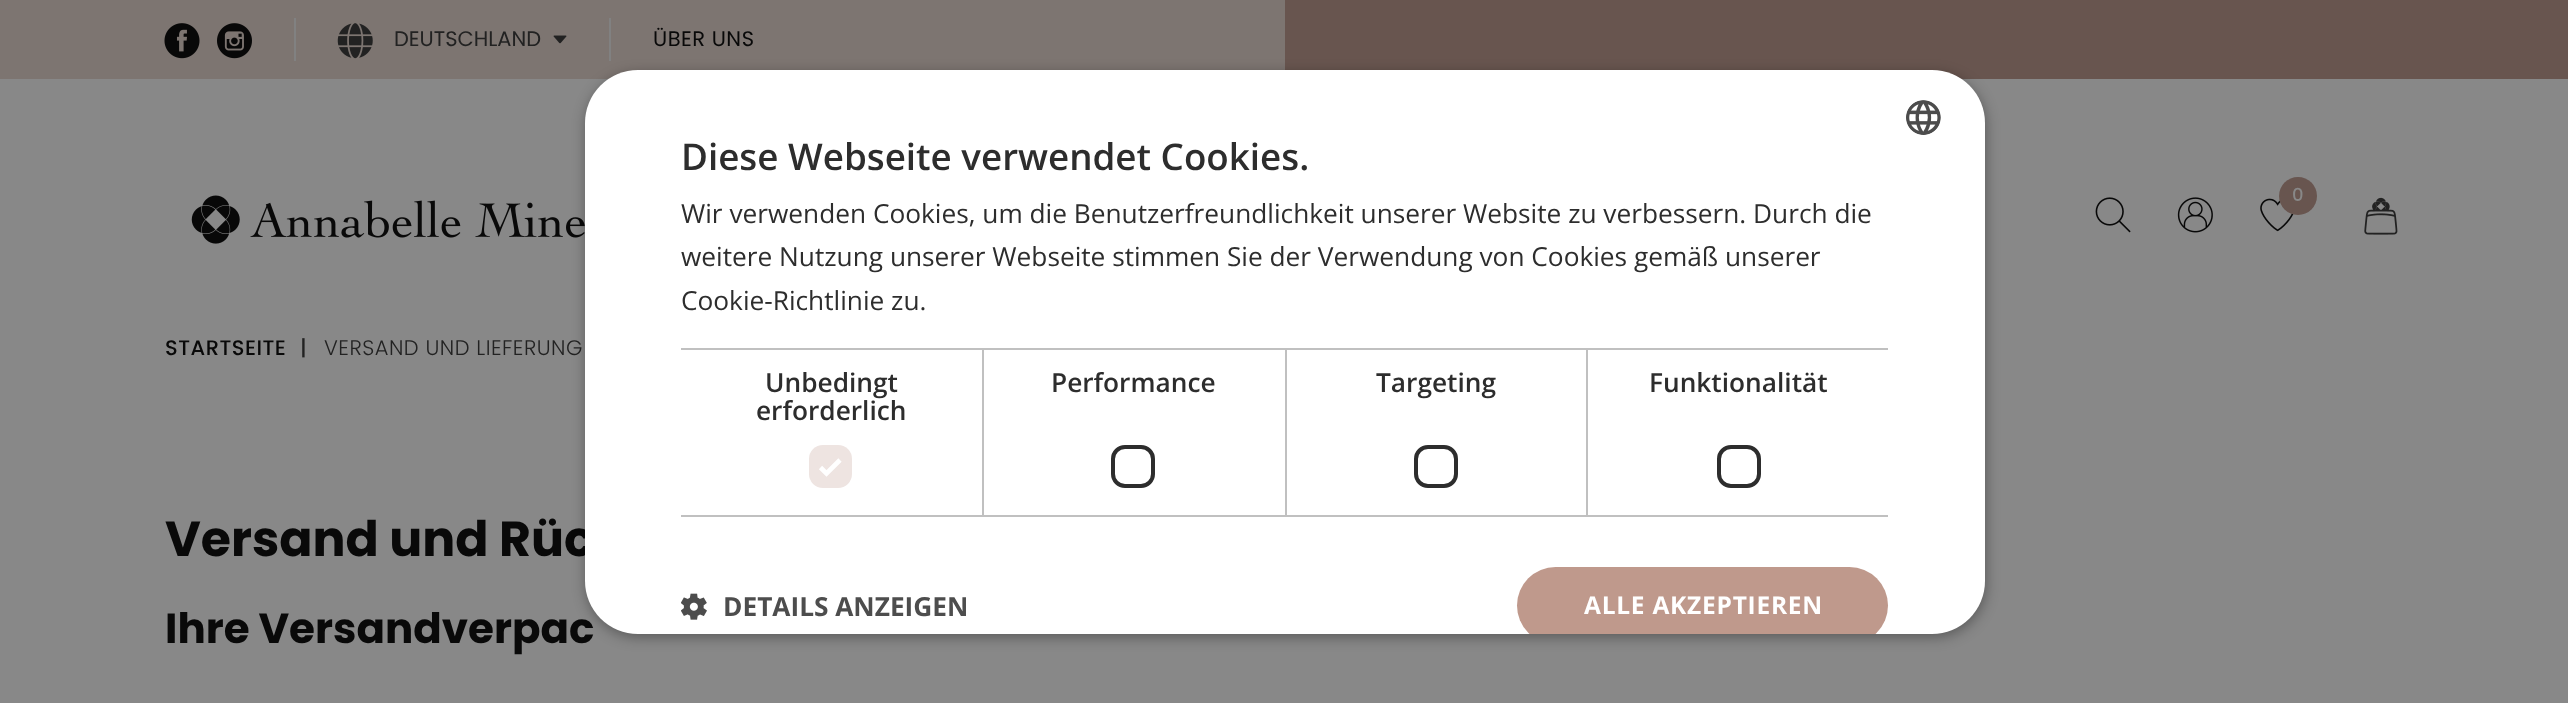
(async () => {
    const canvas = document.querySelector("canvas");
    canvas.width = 2568;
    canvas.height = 703;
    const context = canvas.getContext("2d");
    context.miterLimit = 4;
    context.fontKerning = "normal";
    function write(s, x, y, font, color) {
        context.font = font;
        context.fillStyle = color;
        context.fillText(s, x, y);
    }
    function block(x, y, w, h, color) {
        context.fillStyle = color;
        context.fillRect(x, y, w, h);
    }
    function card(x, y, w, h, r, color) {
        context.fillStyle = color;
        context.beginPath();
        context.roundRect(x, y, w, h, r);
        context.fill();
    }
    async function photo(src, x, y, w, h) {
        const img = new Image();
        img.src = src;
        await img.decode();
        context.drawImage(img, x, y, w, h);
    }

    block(0, 0, 2568, 703, "rgb(136, 136, 136)");
    block(0, 0, 1285, 79, "rgb(125, 117, 113)");
    block(1285, 0, 1283, 79, "rgb(104, 85, 79)");
    await photo("media/1.png", 164, 23, 36, 36);
    await photo("media/2.png", 217, 23, 35, 36);
    block(294, 18, 2, 43, "rgb(129, 129, 129)");
    await photo("media/3.png", 337, 23, 36, 36);
    write("DEUTSCHLAND", 394, 46, "21px Poppins", "rgb(34, 34, 34)");
    await photo("media/4.png", 553, 35, 14, 9);
    block(609, 18, 2, 43, "rgb(129, 129, 129)");
    context.letterSpacing = "0.5px";
    write("ÜBER UNS", 653, 46, "21px Poppins", "rgb(9, 9, 9)");
    await photo("media/5.png", 191, 195, 394, 49);
    await photo("media/6.png", 2260, 198, 34, 34);
    context.fillStyle = "rgb(104, 85, 79)";
    context.beginPath();
    context.arc(2298, 196, 19, 0, Math.PI * 2);
    context.fill();
    context.letterSpacing = "0px";
    write("0", 2292, 201, "500 18px Poppins", "rgb(136, 136, 136)");
    await photo("media/7.png", 2095, 197, 36, 36);
    await photo("media/8.png", 2177, 197, 36, 36);
    await photo("media/9.png", 2364, 197, 34, 38);
    context.letterSpacing = "0.5px";
    write("STARTSEITE", 165, 355, "500 21px Poppins", "rgb(9, 9, 9)");
    write("|", 300, 355, "500 21px Poppins", "rgb(34, 34, 34)");
    write("VERSAND UND LIEFERUNG", 324, 355, "300 21px Poppins", "rgb(34, 34, 34)");
    context.letterSpacing = "0px";
    write("Versand und Rüc", 165, 556, "bold 49px Poppins", "rgb(9, 9, 9)");
    write("Ihre Versandverpac", 165, 643, "bold 42px Poppins", "rgb(9, 9, 9)");
    context.fillStyle = "rgba(0, 0, 0, 0.35)";
    context.filter = "blur(7px)";
    context.beginPath();
    context.roundRect(586, 74, 1400, 563, 53);
    context.fill();
    context.filter = "none";
    card(585, 70, 1400, 564, 53, "rgb(255, 255, 255)");
    await photo("media/10.png", 1906, 100, 35, 35);
    write("Diese Webseite verwendet Cookies.", 681, 170, "600 36.75px Open Sans", "rgb(45, 45, 45)");
    write("Wir verwenden Cookies, um die Benutzerfreundlichkeit unserer Website zu verbessern. Durch die", 681, 223, "26.25px Open Sans", "rgb(45, 45, 45)");
    write("weitere Nutzung unserer Webseite stimmen Sie der Verwendung von Cookies gemäß unserer", 681, 266, "26.25px Open Sans", "rgb(45, 45, 45)");
    write("Cookie-Richtlinie zu.", 681, 310, "26.25px Open Sans", "rgb(45, 45, 45)");
    block(681, 348, 605, 2, "rgb(192, 192, 192)");
    block(982, 348, 2, 168, "rgb(192, 192, 192)");
    block(681, 515, 303, 2, "rgb(192, 192, 192)");
    write("Unbedingt", 765, 392, "600 26.25px Open Sans", "rgb(45, 45, 45)");
    write("erforderlich", 756, 420, "600 26.25px Open Sans", "rgb(45, 45, 45)");
    card(809, 445, 43, 43, 14, "rgb(238, 228, 225)");
    context.beginPath();
    context.moveTo(820.5, 467.5);
    context.lineTo(826.5, 473.5);
    context.lineTo(840, 460);
    context.strokeStyle = "rgb(255, 255, 255)";
    context.lineWidth = 4.6;
    context.stroke();
    block(1285, 348, 2, 168, "rgb(192, 192, 192)");
    block(984, 515, 302, 2, "rgb(192, 192, 192)");
    write("Performance", 1051, 392, "600 26.25px Open Sans", "rgb(45, 45, 45)");
    context.beginPath();
    context.roundRect(1113, 447, 40, 39, 12);
    context.strokeStyle = "rgb(45, 45, 45)";
    context.lineWidth = 4;
    context.stroke();
    block(1286, 348, 301, 2, "rgb(192, 192, 192)");
    block(1586, 348, 2, 168, "rgb(192, 192, 192)");
    block(1286, 515, 602, 2, "rgb(192, 192, 192)");
    write("Targeting", 1376, 392, "600 26.25px Open Sans", "rgb(45, 45, 45)");
    context.beginPath();
    context.roundRect(1416, 447, 40, 39, 12);
    context.stroke();
    block(1587, 348, 301, 2, "rgb(192, 192, 192)");
    write("Funktionalität", 1649, 392, "600 26.25px Open Sans", "rgb(45, 45, 45)");
    context.beginPath();
    context.roundRect(1719, 447, 40, 39, 12);
    context.stroke();
    await photo("media/11.png", 681, 593, 26, 27);
    write("DETAILS ANZEIGEN", 723, 616, "bold 26.25px Open Sans", "rgb(77, 77, 77)");
    context.save();
    context.beginPath();
    context.roundRect(585, 70, 1400, 564, 53);
    context.clip();
    card(1517, 567, 371, 77, 38.5, "rgb(191, 153, 140)");
    context.restore();
    context.letterSpacing = "0.75px";
    write("ALLE AKZEPTIEREN", 1584, 614, "bold 24.5px Open Sans", "rgb(255, 255, 255)");
})();
